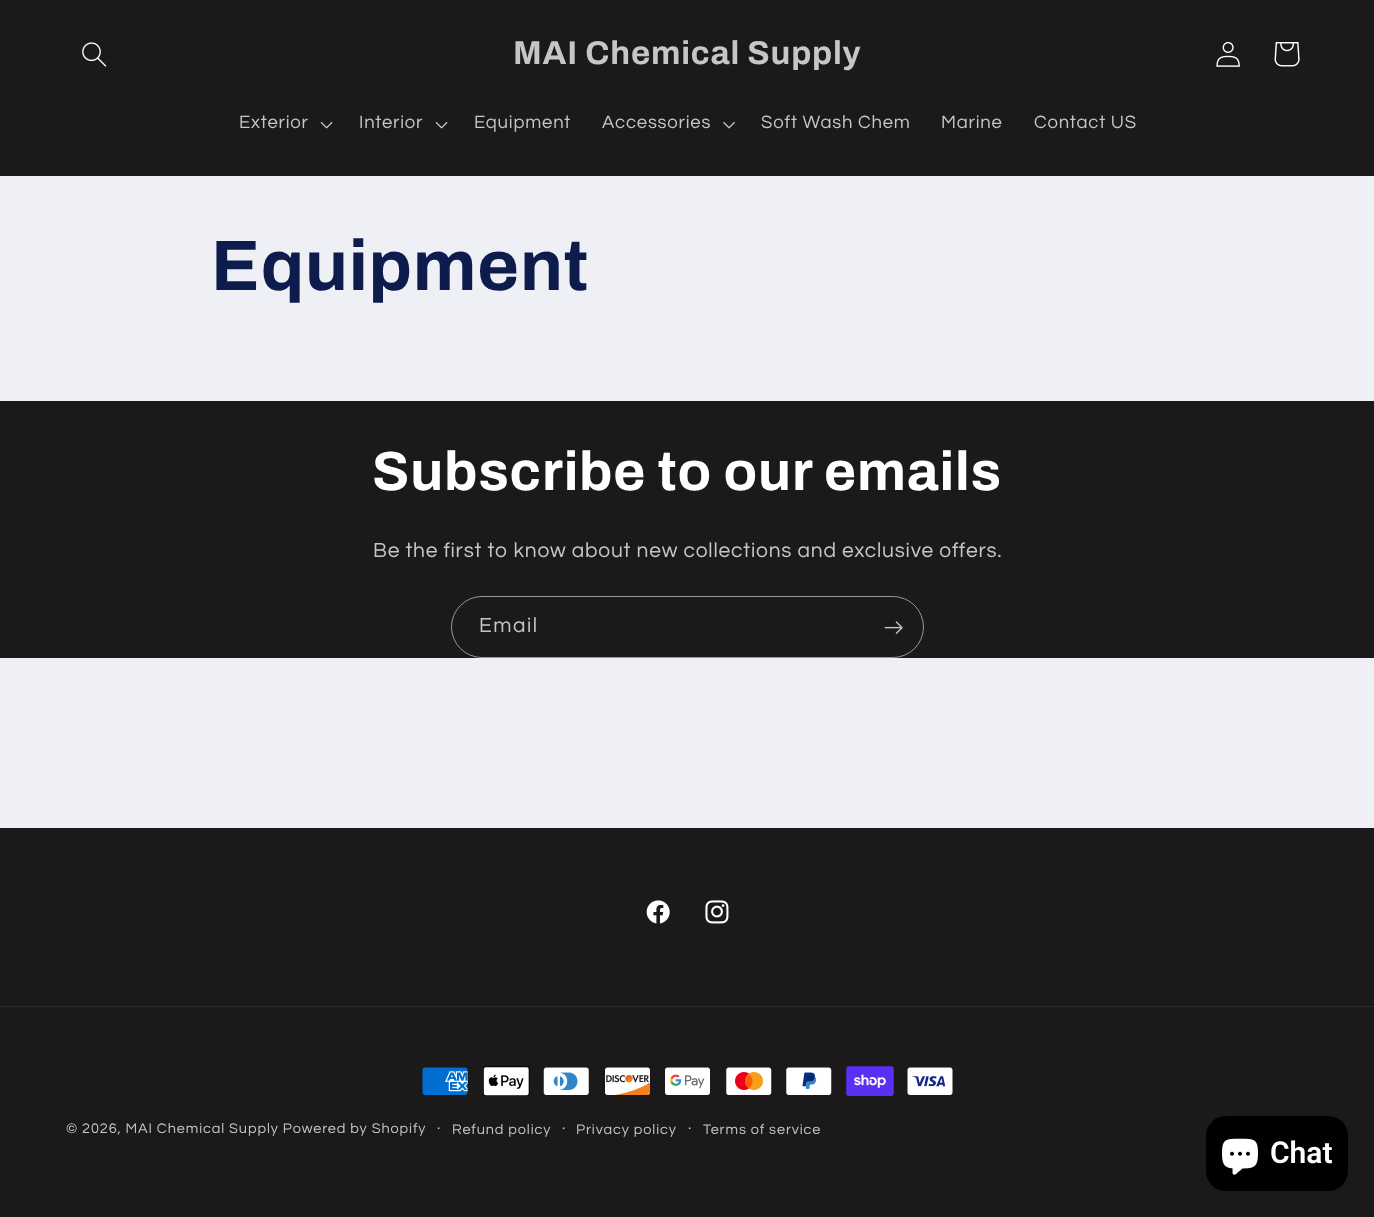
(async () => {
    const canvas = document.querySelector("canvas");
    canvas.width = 1374;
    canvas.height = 1217;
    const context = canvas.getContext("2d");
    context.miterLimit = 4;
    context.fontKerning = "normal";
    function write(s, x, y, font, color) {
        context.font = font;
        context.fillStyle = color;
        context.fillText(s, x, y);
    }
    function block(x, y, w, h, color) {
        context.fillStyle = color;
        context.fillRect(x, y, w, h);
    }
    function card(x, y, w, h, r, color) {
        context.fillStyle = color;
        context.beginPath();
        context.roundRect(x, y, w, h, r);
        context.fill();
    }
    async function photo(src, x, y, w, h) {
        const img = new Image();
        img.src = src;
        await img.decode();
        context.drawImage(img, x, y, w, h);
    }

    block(0, 0, 1374, 1217, "rgb(239, 240, 245)");
    block(0, 0, 1374, 176, "rgb(27, 25, 25)");
    await photo("media/1.png", 82, 42, 25, 25);
    context.letterSpacing = "0.8px";
    write("MAI Chemical Supply", 513, 64, "bold 33px Archivo", "rgb(198, 198, 198)");
    await photo("media/2.png", 1216, 41, 24, 26);
    await photo("media/3.png", 1274, 42, 26, 25);
    write("Exterior", 239, 128, "18.5px Questrial", "rgb(198, 198, 198)");
    await photo("media/4.png", 320, 122, 13, 7);
    write("Interior", 359, 128, "18.5px Questrial", "rgb(198, 198, 198)");
    await photo("media/4.png", 435, 122, 13, 7);
    write("Equipment", 474, 128, "18.5px Questrial", "rgb(198, 198, 198)");
    write("Accessories", 602, 128, "18.5px Questrial", "rgb(198, 198, 198)");
    await photo("media/5.png", 723, 122, 12, 7);
    write("Soft Wash Chem", 761, 128, "18.5px Questrial", "rgb(198, 198, 198)");
    write("Marine", 941, 128, "18.5px Questrial", "rgb(198, 198, 198)");
    write("Contact US", 1034, 128, "18.5px Questrial", "rgb(198, 198, 198)");
    write("Equipment", 211, 290, "bold 71.5px Archivo", "rgb(14, 27, 77)");
    block(0, 401, 1374, 257, "rgb(27, 25, 25)");
    write("Subscribe to our emails", 372, 490, "bold 55px Archivo", "rgb(255, 255, 255)");
    write("Be the first to know about new collections and exclusive offers.", 373, 557, "21px Questrial", "rgb(198, 198, 198)");
    context.beginPath();
    context.roundRect(451.5, 596.5, 472, 61, 30.5);
    context.strokeStyle = "rgb(152, 152, 152)";
    context.stroke();
    context.letterSpacing = "1.5px";
    write("Email", 479, 632, "21px Questrial", "rgb(198, 198, 198)");
    await photo("media/6.png", 884, 621, 19, 13);
    block(0, 828, 1374, 389, "rgb(27, 25, 25)");
    await photo("media/7.png", 646, 900, 24, 24);
    await photo("media/8.png", 705, 900, 24, 24);
    block(0, 1006, 1374, 1, "rgb(45, 43, 43)");
    await photo("media/9.png", 422, 1067, 46, 28);
    await photo("media/10.png", 483, 1066, 47, 30);
    await photo("media/11.png", 543, 1067, 46, 28);
    await photo("media/12.png", 605, 1067, 46, 28);
    await photo("media/13.png", 665, 1067, 45, 28);
    await photo("media/14.png", 726, 1067, 46, 28);
    await photo("media/15.png", 786, 1067, 46, 28);
    await photo("media/16.png", 846, 1066, 48, 30);
    await photo("media/17.png", 907, 1067, 46, 28);
    context.letterSpacing = "0.9px";
    write("© 2026, MAI Chemical Supply Powered by Shopify", 66, 1133, "14.45px Questrial", "rgb(198, 198, 198)");
    write("·", 437, 1133, "16px Questrial", "rgb(198, 198, 198)");
    write("Refund policy", 452, 1134, "14.45px Questrial", "rgb(198, 198, 198)");
    write("·", 562, 1133, "16px Questrial", "rgb(198, 198, 198)");
    write("Privacy policy", 576, 1134, "14.45px Questrial", "rgb(198, 198, 198)");
    write("·", 688, 1133, "16px Questrial", "rgb(198, 198, 198)");
    write("Terms of service", 703, 1134, "14.45px Questrial", "rgb(198, 198, 198)");
    card(1206, 1116, 142, 75, 20, "rgb(0, 0, 0)");
    await photo("media/18.png", 1222, 1138, 36, 37);
    context.letterSpacing = "0px";
    write("Chat", 1270, 1163, "600 30px Roboto", "rgb(255, 255, 255)");
})();
